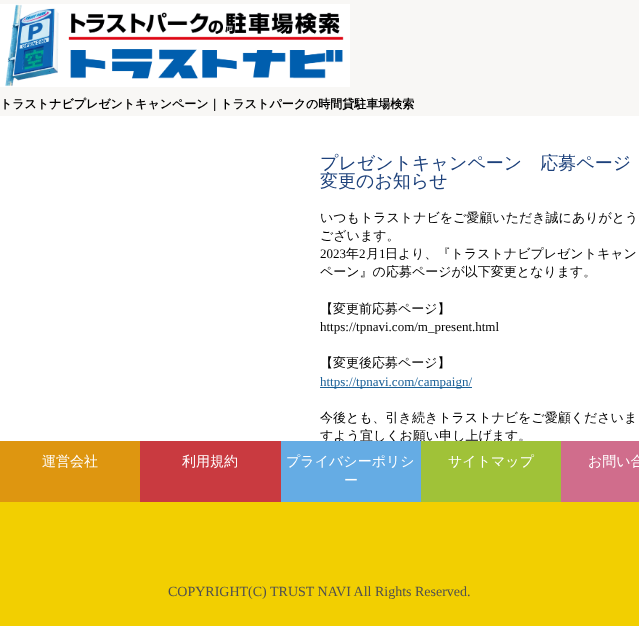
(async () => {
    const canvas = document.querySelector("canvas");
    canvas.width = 639;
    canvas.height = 626;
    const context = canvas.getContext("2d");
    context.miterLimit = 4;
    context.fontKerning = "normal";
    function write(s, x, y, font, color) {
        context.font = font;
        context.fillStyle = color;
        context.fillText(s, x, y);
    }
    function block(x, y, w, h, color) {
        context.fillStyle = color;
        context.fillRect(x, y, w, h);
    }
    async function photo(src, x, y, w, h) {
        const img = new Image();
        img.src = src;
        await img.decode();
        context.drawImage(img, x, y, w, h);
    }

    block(0, 0, 639, 626, "rgb(255, 255, 255)");
    block(0, 0, 639, 116, "rgb(248, 247, 245)");
    await photo("media/1.png", 0, 4, 350, 83);
    write("トラストナビプレゼントキャンペーン｜トラストパークの時間貸駐車場検索", 0, 108, "bold 12px WenQuanYi Zen Hei", "rgb(0, 0, 0)");
    write("プレゼントキャンペーン　応募ページ", 320, 169, "500 18px WenQuanYi Zen Hei", "rgb(29, 65, 123)");
    write("変更のお知らせ", 320, 187, "500 18px WenQuanYi Zen Hei", "rgb(29, 65, 123)");
    write("いつもトラストナビをご愛顧いただき誠にありがとう", 320, 222, "500 13px WenQuanYi Zen Hei", "rgb(0, 0, 0)");
    write("ございます。", 320, 240, "500 13px WenQuanYi Zen Hei", "rgb(0, 0, 0)");
    write("2023", 320, 258, "13px Liberation Serif", "rgb(0, 0, 0)");
    write("年", 346, 258, "500 13px WenQuanYi Zen Hei", "rgb(0, 0, 0)");
    write("2", 359, 258, "13px Liberation Serif", "rgb(0, 0, 0)");
    write("月", 366, 258, "500 13px WenQuanYi Zen Hei", "rgb(0, 0, 0)");
    write("1", 379, 258, "13px Liberation Serif", "rgb(0, 0, 0)");
    write("日より、『トラストナビプレゼントキャン", 385, 258, "500 13px WenQuanYi Zen Hei", "rgb(0, 0, 0)");
    write("ペーン』の応募ページが以下変更となります。", 320, 276, "500 13px WenQuanYi Zen Hei", "rgb(0, 0, 0)");
    write("【変更前応募ページ】", 320, 313, "500 13px WenQuanYi Zen Hei", "rgb(0, 0, 0)");
    write("https://tpnavi.com/m_present.html", 320, 331, "13px Liberation Serif", "rgb(0, 0, 0)");
    write("【変更後応募ページ】", 320, 367, "500 13px WenQuanYi Zen Hei", "rgb(0, 0, 0)");
    block(320, 387, 152, 1, "rgb(27, 97, 152)");
    write("https://tpnavi.com/campaign/", 320, 386, "13px Liberation Serif", "rgb(27, 97, 152)");
    write("今後とも、引き続きトラストナビをご愛顧くださいま", 320, 422, "500 13px WenQuanYi Zen Hei", "rgb(0, 0, 0)");
    write("すよう宜しくお願い申し上げます。", 320, 440, "500 13px WenQuanYi Zen Hei", "rgb(0, 0, 0)");
    block(0, 441, 140, 61, "rgb(222, 150, 16)");
    write("運営会社", 42, 466, "500 14px WenQuanYi Zen Hei", "rgb(255, 255, 255)");
    block(140, 441, 141, 61, "rgb(201, 58, 64)");
    write("利用規約", 182, 466, "500 14px WenQuanYi Zen Hei", "rgb(255, 255, 255)");
    block(281, 441, 140, 61, "rgb(101, 172, 228)");
    write("プライバシーポリシ", 286, 466, "500 14px WenQuanYi Zen Hei", "rgb(255, 255, 255)");
    write("ー", 344, 485, "500 14px WenQuanYi Zen Hei", "rgb(255, 255, 255)");
    block(421, 441, 140, 61, "rgb(160, 194, 56)");
    write("サイトマップ", 448, 466, "500 14px WenQuanYi Zen Hei", "rgb(255, 255, 255)");
    block(561, 441, 78, 61, "rgb(208, 109, 140)");
    write("お問い合", 588, 466, "500 14px WenQuanYi Zen Hei", "rgb(255, 255, 255)");
    block(0, 502, 639, 124, "rgb(242, 207, 1)");
    write("COPYRIGHT(C) TRUST NAVI All Rights Reserved.", 168, 596, "14px Liberation Serif", "rgb(80, 80, 80)");
})();
